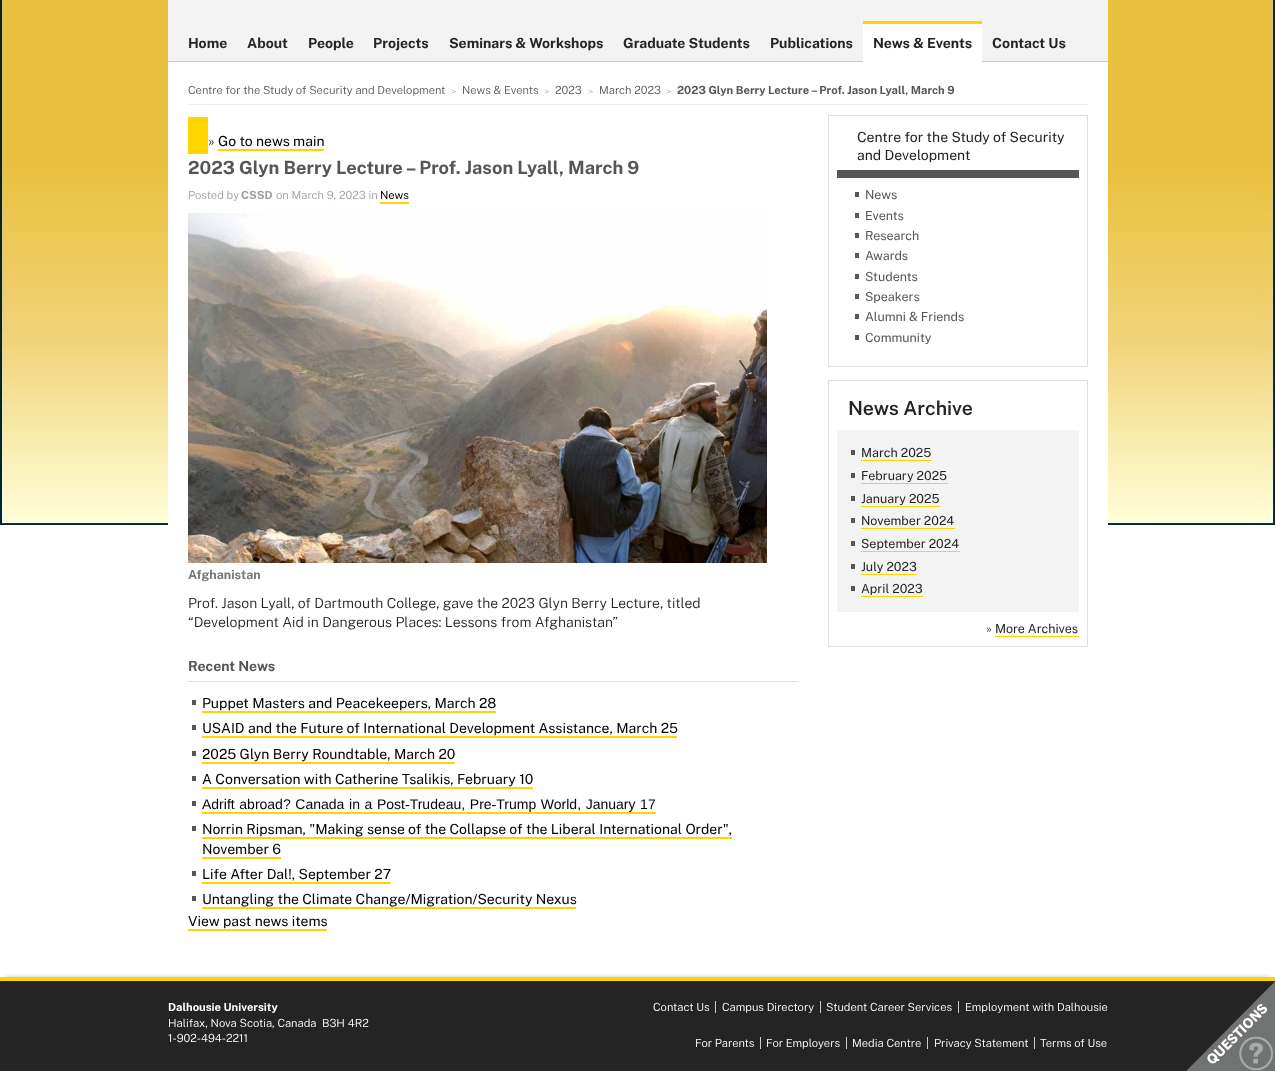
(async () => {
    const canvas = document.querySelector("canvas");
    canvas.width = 1275;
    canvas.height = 1071;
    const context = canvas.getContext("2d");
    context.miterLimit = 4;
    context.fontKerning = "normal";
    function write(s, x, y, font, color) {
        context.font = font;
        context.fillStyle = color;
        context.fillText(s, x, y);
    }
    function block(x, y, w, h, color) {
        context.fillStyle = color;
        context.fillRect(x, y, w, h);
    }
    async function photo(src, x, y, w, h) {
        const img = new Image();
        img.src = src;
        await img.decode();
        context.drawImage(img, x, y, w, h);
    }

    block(0, 0, 1275, 1071, "rgb(255, 255, 255)");
    await photo("media/1.png", 0, 0, 1275, 525);
    block(168, 0, 940, 61, "rgb(243, 243, 243)");
    block(168, 62, 940, 463, "rgb(255, 255, 255)");
    block(168, 61, 940, 1, "rgb(201, 201, 201)");
    write("Home", 188, 48, "bold 14px Public Sans", "rgb(36, 36, 36)");
    write("About", 247, 48, "bold 14px Public Sans", "rgb(36, 36, 36)");
    write("People", 308, 48, "bold 14px Public Sans", "rgb(36, 36, 36)");
    write("Projects", 373, 48, "bold 14px Public Sans", "rgb(36, 36, 36)");
    write("Seminars & Workshops", 449, 48, "bold 14px Public Sans", "rgb(36, 36, 36)");
    write("Graduate Students", 623, 48, "bold 14px Public Sans", "rgb(36, 36, 36)");
    write("Publications", 770, 48, "bold 14px Public Sans", "rgb(36, 36, 36)");
    block(863, 21, 119, 3, "rgb(255, 212, 0)");
    block(863, 24, 119, 38, "rgb(255, 255, 255)");
    write("News & Events", 873, 48, "bold 14px Public Sans", "rgb(36, 36, 36)");
    write("Contact Us", 992, 48, "bold 14px Public Sans", "rgb(36, 36, 36)");
    block(188, 104, 900, 1, "rgb(239, 238, 236)");
    write("Centre for the Study of Security and Development", 188, 94, "300 11.2px Public Sans", "rgb(87, 86, 85)");
    write(">", 451, 95, "300 10px Public Sans", "rgb(185, 185, 185)");
    write("News & Events", 462, 94, "300 11.2px Public Sans", "rgb(87, 86, 85)");
    write(">", 544, 95, "300 10px Public Sans", "rgb(185, 185, 185)");
    write("2023", 555, 94, "300 11.2px Public Sans", "rgb(87, 86, 85)");
    write(">", 588, 95, "300 10px Public Sans", "rgb(185, 185, 185)");
    write("March 2023", 599, 94, "300 11.2px Public Sans", "rgb(87, 86, 85)");
    write(">", 666, 95, "300 10px Public Sans", "rgb(185, 185, 185)");
    write("2023 Glyn Berry Lecture – Prof. Jason Lyall, March 9", 677, 94, "bold 11.2px Public Sans", "rgb(87, 86, 85)");
    block(188, 117, 20, 37, "rgb(255, 212, 0)");
    write("»", 208, 146, "300 14px Public Sans", "rgb(36, 36, 36)");
    write("Go to news main", 218, 146, "14px Public Sans", "rgb(0, 0, 0)");
    block(218, 149, 106, 2, "rgb(255, 212, 0)");
    write("2023 Glyn Berry Lecture – Prof. Jason Lyall, March 9", 188, 174, "bold 18.2px Public Sans", "rgb(87, 86, 85)");
    write("Posted by", 188, 199, "300 11.2px Public Sans", "rgb(158, 157, 154)");
    write("CSSD", 241, 199, "bold 11.2px Public Sans", "rgb(158, 157, 154)");
    write("on March 9, 2023 in", 276, 199, "300 11.2px Public Sans", "rgb(158, 157, 154)");
    write("News", 380, 199, "11.2px Public Sans", "rgb(0, 0, 0)");
    block(380, 202, 29, 2, "rgb(255, 212, 0)");
    await photo("media/2.png", 188, 213, 579, 350);
    write("Afghanistan", 188, 579, "bold 12.5px Public Sans", "rgb(119, 119, 119)");
    write("Prof. Jason Lyall, of Dartmouth College, gave the 2023 Glyn Berry Lecture, titled", 188, 608, "300 14px Public Sans", "rgb(36, 36, 36)");
    write("“Development Aid in Dangerous Places: Lessons from Afghanistan”", 188, 627, "300 14px Public Sans", "rgb(36, 36, 36)");
    block(188, 681, 610, 1, "rgb(223, 222, 218)");
    write("Recent News", 188, 671, "bold 14px Public Sans", "rgb(87, 86, 85)");
    block(192, 700, 4, 5, "rgb(87, 86, 85)");
    write("Puppet Masters and Peacekeepers, March 28", 202, 708, "14px Public Sans", "rgb(0, 0, 0)");
    block(202, 711, 294, 2, "rgb(255, 212, 0)");
    block(192, 725, 4, 5, "rgb(87, 86, 85)");
    write("USAID and the Future of International Development Assistance, March 25", 202, 733, "14px Public Sans", "rgb(0, 0, 0)");
    block(202, 736, 475, 2, "rgb(255, 212, 0)");
    block(192, 751, 4, 5, "rgb(87, 86, 85)");
    write("2025 Glyn Berry Roundtable, March 20", 202, 759, "14px Public Sans", "rgb(0, 0, 0)");
    block(202, 762, 253, 2, "rgb(255, 212, 0)");
    block(192, 776, 4, 5, "rgb(87, 86, 85)");
    write("A Conversation with Catherine Tsalikis, February 10", 202, 784, "14px Public Sans", "rgb(0, 0, 0)");
    block(202, 787, 331, 2, "rgb(255, 212, 0)");
    block(192, 801, 4, 5, "rgb(87, 86, 85)");
    context.wordSpacing = "0.75px";
    write("Adrift abroad? Canada in a Post‑Trudeau, Pre‑Trump World, January 17", 202, 809, "14px Liberation Sans", "rgb(0, 0, 0)");
    block(202, 812, 454, 2, "rgb(255, 212, 0)");
    block(192, 826, 4, 5, "rgb(87, 86, 85)");
    context.wordSpacing = "0px";
    write("Norrin Ripsman, \"Making sense of the Collapse of the Liberal International Order\",", 202, 834, "14px Public Sans", "rgb(0, 0, 0)");
    block(202, 837, 530, 2, "rgb(255, 212, 0)");
    write("November 6", 202, 854, "14px Public Sans", "rgb(0, 0, 0)");
    block(202, 857, 79, 2, "rgb(255, 212, 0)");
    block(192, 871, 4, 5, "rgb(87, 86, 85)");
    write("Life After Dal!, September 27", 202, 879, "14px Public Sans", "rgb(0, 0, 0)");
    block(202, 882, 189, 2, "rgb(255, 212, 0)");
    block(192, 896, 4, 5, "rgb(87, 86, 85)");
    write("Untangling the Climate Change/Migration/Security Nexus", 202, 904, "14px Public Sans", "rgb(0, 0, 0)");
    block(202, 907, 374, 2, "rgb(255, 212, 0)");
    write("View past news items", 188, 926, "14px Public Sans", "rgb(0, 0, 0)");
    block(188, 929, 139, 2, "rgb(255, 212, 0)");
    context.strokeStyle = "rgb(223, 222, 218)";
    context.strokeRect(828.5, 115.5, 259, 251);
    write("Centre for the Study of Security", 857, 142, "14px Public Sans", "rgb(36, 36, 36)");
    write("and Development", 857, 160, "14px Public Sans", "rgb(36, 36, 36)");
    block(837, 170, 242, 8, "rgb(87, 86, 85)");
    block(855, 192, 4, 5, "rgb(87, 86, 85)");
    write("News", 865, 199, "12.5px Public Sans", "rgb(87, 86, 85)");
    block(855, 213, 4, 5, "rgb(87, 86, 85)");
    write("Events", 865, 220, "12.5px Public Sans", "rgb(87, 86, 85)");
    block(855, 233, 4, 5, "rgb(87, 86, 85)");
    write("Research", 865, 240, "12.5px Public Sans", "rgb(87, 86, 85)");
    block(855, 253, 4, 5, "rgb(87, 86, 85)");
    write("Awards", 865, 260, "12.5px Public Sans", "rgb(87, 86, 85)");
    block(855, 274, 4, 5, "rgb(87, 86, 85)");
    write("Students", 865, 281, "12.5px Public Sans", "rgb(87, 86, 85)");
    block(855, 294, 4, 5, "rgb(87, 86, 85)");
    write("Speakers", 865, 301, "12.5px Public Sans", "rgb(87, 86, 85)");
    block(855, 314, 4, 5, "rgb(87, 86, 85)");
    write("Alumni & Friends", 865, 321, "12.5px Public Sans", "rgb(87, 86, 85)");
    block(855, 335, 4, 5, "rgb(87, 86, 85)");
    write("Community", 865, 342, "12.5px Public Sans", "rgb(87, 86, 85)");
    context.strokeRect(828.5, 380.5, 259, 266);
    write("News Archive", 848, 415, "600 19.5px Public Sans", "rgb(36, 36, 36)");
    block(837, 430, 242, 182, "rgb(243, 243, 243)");
    block(851, 450, 4, 5, "rgb(87, 86, 85)");
    write("March 2025", 861, 457, "12.5px Public Sans", "rgb(36, 36, 36)");
    block(861, 460, 71, 1, "rgb(255, 212, 0)");
    block(851, 473, 4, 5, "rgb(87, 86, 85)");
    write("February 2025", 861, 480, "12.5px Public Sans", "rgb(36, 36, 36)");
    block(861, 483, 87, 1, "rgb(255, 212, 0)");
    block(851, 496, 4, 5, "rgb(87, 86, 85)");
    write("January 2025", 861, 503, "12.5px Public Sans", "rgb(36, 36, 36)");
    block(861, 506, 79, 1, "rgb(255, 212, 0)");
    block(851, 518, 4, 5, "rgb(87, 86, 85)");
    write("November 2024", 861, 525, "12.5px Public Sans", "rgb(36, 36, 36)");
    block(861, 528, 94, 1, "rgb(255, 212, 0)");
    block(851, 541, 4, 5, "rgb(87, 86, 85)");
    write("September 2024", 861, 548, "12.5px Public Sans", "rgb(36, 36, 36)");
    block(861, 551, 99, 1, "rgb(255, 212, 0)");
    block(851, 564, 4, 5, "rgb(87, 86, 85)");
    write("July 2023", 861, 571, "12.5px Public Sans", "rgb(36, 36, 36)");
    block(861, 574, 56, 1, "rgb(255, 212, 0)");
    block(851, 586, 4, 5, "rgb(87, 86, 85)");
    write("April 2023", 861, 593, "12.5px Public Sans", "rgb(36, 36, 36)");
    block(861, 596, 62, 1, "rgb(255, 212, 0)");
    write("»", 986, 633, "300 12.5px Public Sans", "rgb(36, 36, 36)");
    write("More Archives", 995, 633, "12.5px Public Sans", "rgb(36, 36, 36)");
    block(995, 636, 84, 1, "rgb(255, 212, 0)");
    block(0, 981, 1275, 90, "rgb(36, 36, 36)");
    context.save();
    context.beginPath();
    context.rect(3, 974, 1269, 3);
    context.clip();
    context.fillStyle = "rgba(0, 0, 0, 0.2)";
    context.filter = "blur(2.5px)";
    context.beginPath();
    context.rect(5, 977, 1265, 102);
    context.fill();
    context.filter = "none";
    context.restore();
    block(0, 977, 1275, 4, "rgb(255, 212, 0)");
    write("Dalhousie University", 168, 1011, "bold 11.2px Public Sans", "rgb(255, 255, 255)");
    write("Halifax, Nova Scotia, Canada  B3H 4R2", 168, 1027, "300 11.2px Public Sans", "rgb(255, 255, 255)");
    write("1-902-494-2211", 168, 1042, "300 11.2px Public Sans", "rgb(255, 255, 255)");
    write("Contact Us", 653, 1011, "300 11.2px Public Sans", "rgb(255, 255, 255)");
    block(715, 1001, 1, 12, "rgb(204, 204, 204)");
    write("Campus Directory", 722, 1011, "300 11.2px Public Sans", "rgb(255, 255, 255)");
    block(820, 1001, 1, 12, "rgb(204, 204, 204)");
    write("Student Career Services", 826, 1011, "300 11.2px Public Sans", "rgb(255, 255, 255)");
    block(958, 1001, 1, 12, "rgb(204, 204, 204)");
    write("Employment with Dalhousie", 965, 1011, "300 11.2px Public Sans", "rgb(255, 255, 255)");
    write("For Parents", 695, 1047, "300 11.2px Public Sans", "rgb(255, 255, 255)");
    block(760, 1037, 1, 12, "rgb(204, 204, 204)");
    write("For Employers", 766, 1047, "300 11.2px Public Sans", "rgb(255, 255, 255)");
    block(846, 1037, 1, 12, "rgb(204, 204, 204)");
    write("Media Centre", 852, 1047, "300 11.2px Public Sans", "rgb(255, 255, 255)");
    block(927, 1037, 1, 12, "rgb(204, 204, 204)");
    write("Privacy Statement", 934, 1047, "300 11.2px Public Sans", "rgb(255, 255, 255)");
    block(1034, 1037, 1, 12, "rgb(204, 204, 204)");
    write("Terms of Use", 1040, 1047, "300 11.2px Public Sans", "rgb(255, 255, 255)");
    await photo("media/3.png", 1186, 981, 89, 90);
})();
